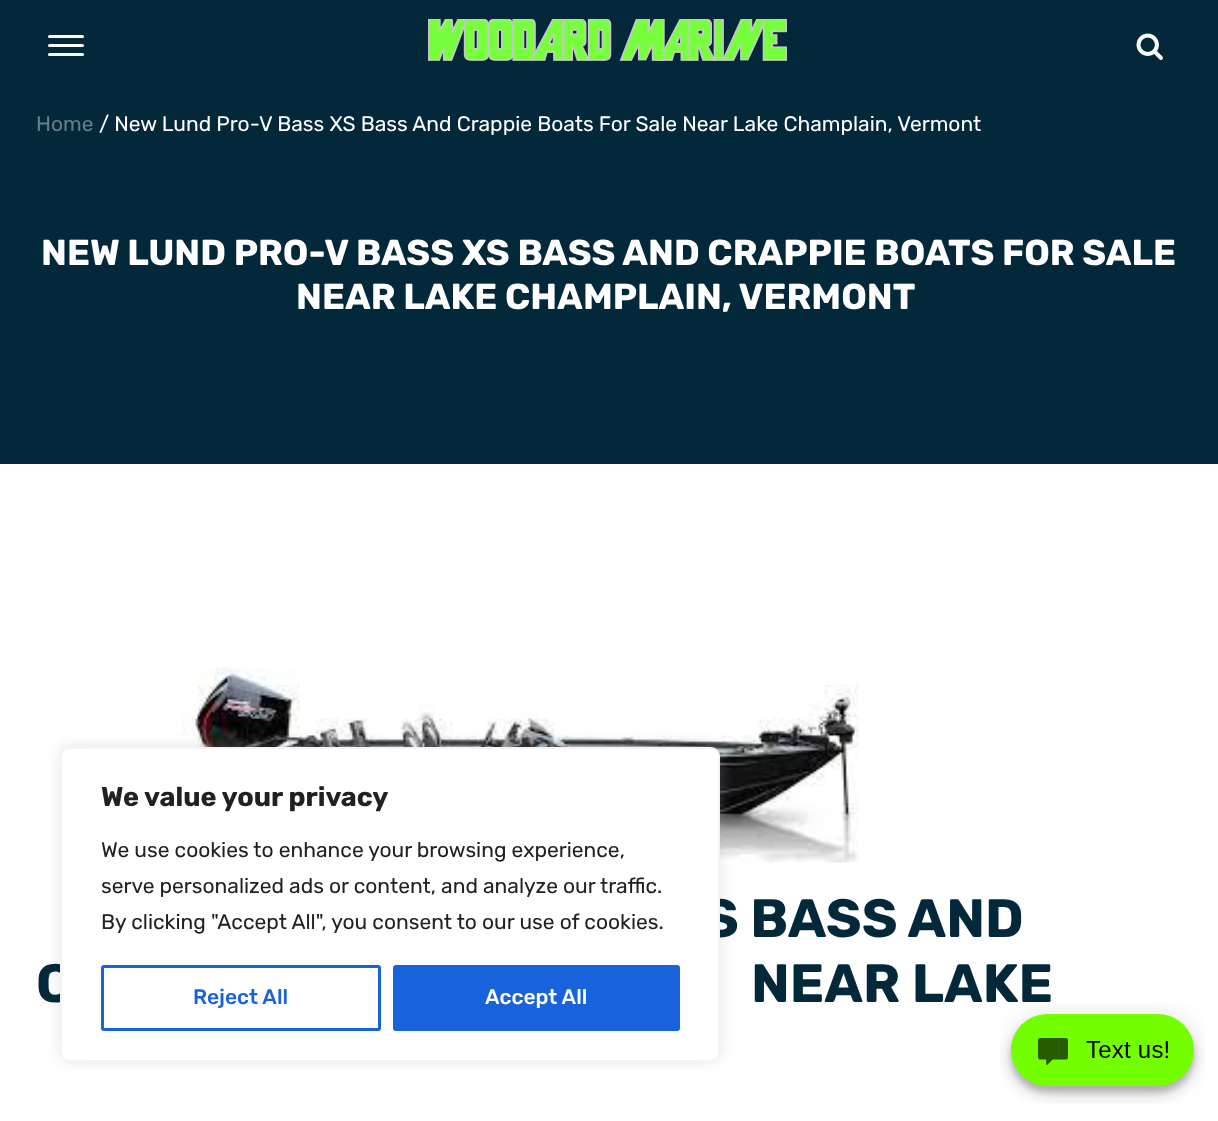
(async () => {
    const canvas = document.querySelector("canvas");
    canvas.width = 1218;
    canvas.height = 1121;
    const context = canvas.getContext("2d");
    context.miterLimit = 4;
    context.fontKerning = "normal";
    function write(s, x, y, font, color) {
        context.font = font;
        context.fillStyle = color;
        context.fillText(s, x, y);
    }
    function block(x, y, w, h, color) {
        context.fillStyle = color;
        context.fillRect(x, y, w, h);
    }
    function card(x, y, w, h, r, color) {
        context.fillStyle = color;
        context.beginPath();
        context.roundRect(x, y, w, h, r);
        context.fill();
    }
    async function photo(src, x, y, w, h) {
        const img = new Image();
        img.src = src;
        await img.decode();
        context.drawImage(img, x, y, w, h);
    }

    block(0, 0, 1218, 1121, "rgb(255, 255, 255)");
    block(0, 0, 1218, 464, "rgb(2, 40, 58)");
    card(48, 35, 36, 3, 1.5, "rgb(255, 255, 255)");
    card(48, 44, 36, 3, 1.5, "rgb(255, 255, 255)");
    card(48, 53, 36, 3, 1.5, "rgb(255, 255, 255)");
    await photo("media/1.png", 428, 19, 359, 42);
    await photo("media/2.png", 1136, 33, 27, 27);
    write("Home", 36, 131, "21px Rubik", "rgb(103, 126, 137)");
    write("/ New Lund Pro-V Bass XS Bass And Crappie Boats For Sale Near Lake Champlain, Vermont", 99, 131, "21px Rubik", "rgb(255, 255, 255)");
    write("NEW LUND PRO-V BASS XS BASS AND CRAPPIE BOATS FOR SALE", 41, 265, "bold 36px Rubik", "rgb(255, 255, 255)");
    write("NEAR LAKE CHAMPLAIN, VERMONT", 296, 309, "bold 36px Rubik", "rgb(255, 255, 255)");
    await photo("media/3.png", 181, 667, 678, 196);
    context.fillStyle = "rgba(172, 171, 171, 0.3)";
    context.filter = "blur(7.5px)";
    context.beginPath();
    context.roundRect(60, 746, 660, 315, 9);
    context.fill();
    context.filter = "none";
    write("S BASS AND", 703, 937, "bold 54px Rubik", "rgb(2, 40, 58)");
    write("C", 36, 1002, "bold 54px Rubik", "rgb(2, 40, 58)");
    context.fillStyle = "rgb(255, 255, 255)";
    context.beginPath();
    context.roundRect(61, 748, 658, 313, 8);
    context.fill();
    context.strokeStyle = "rgb(244, 244, 244)";
    context.lineWidth = 2;
    context.stroke();
    write("We value your privacy", 101, 806, "bold 27px Rubik", "rgb(33, 33, 33)");
    write("We use cookies to enhance your browsing experience,", 101, 857, "21px Rubik", "rgb(33, 33, 33)");
    write("serve personalized ads or content, and analyze our traffic.", 101, 893, "21px Rubik", "rgb(33, 33, 33)");
    write("By clicking \"Accept All\", you consent to our use of cookies.", 101, 929, "21px Rubik", "rgb(33, 33, 33)");
    context.beginPath();
    context.roundRect(102.5, 966.5, 277, 63, 1.5);
    context.strokeStyle = "rgb(24, 99, 220)";
    context.lineWidth = 3;
    context.stroke();
    write("Reject All", 193, 1004, "500 21px Rubik", "rgb(24, 99, 220)");
    context.beginPath();
    context.roundRect(394.5, 966.5, 284, 63, 1.5);
    context.fill();
    context.stroke();
    write("Accept All", 485, 1004, "500 21px Rubik", "rgb(255, 255, 255)");
    write("NEAR LAKE", 751, 1002, "bold 54px Rubik", "rgb(2, 40, 58)");
    await photo("media/4.png", 1000, 1004, 205, 100);
})();
